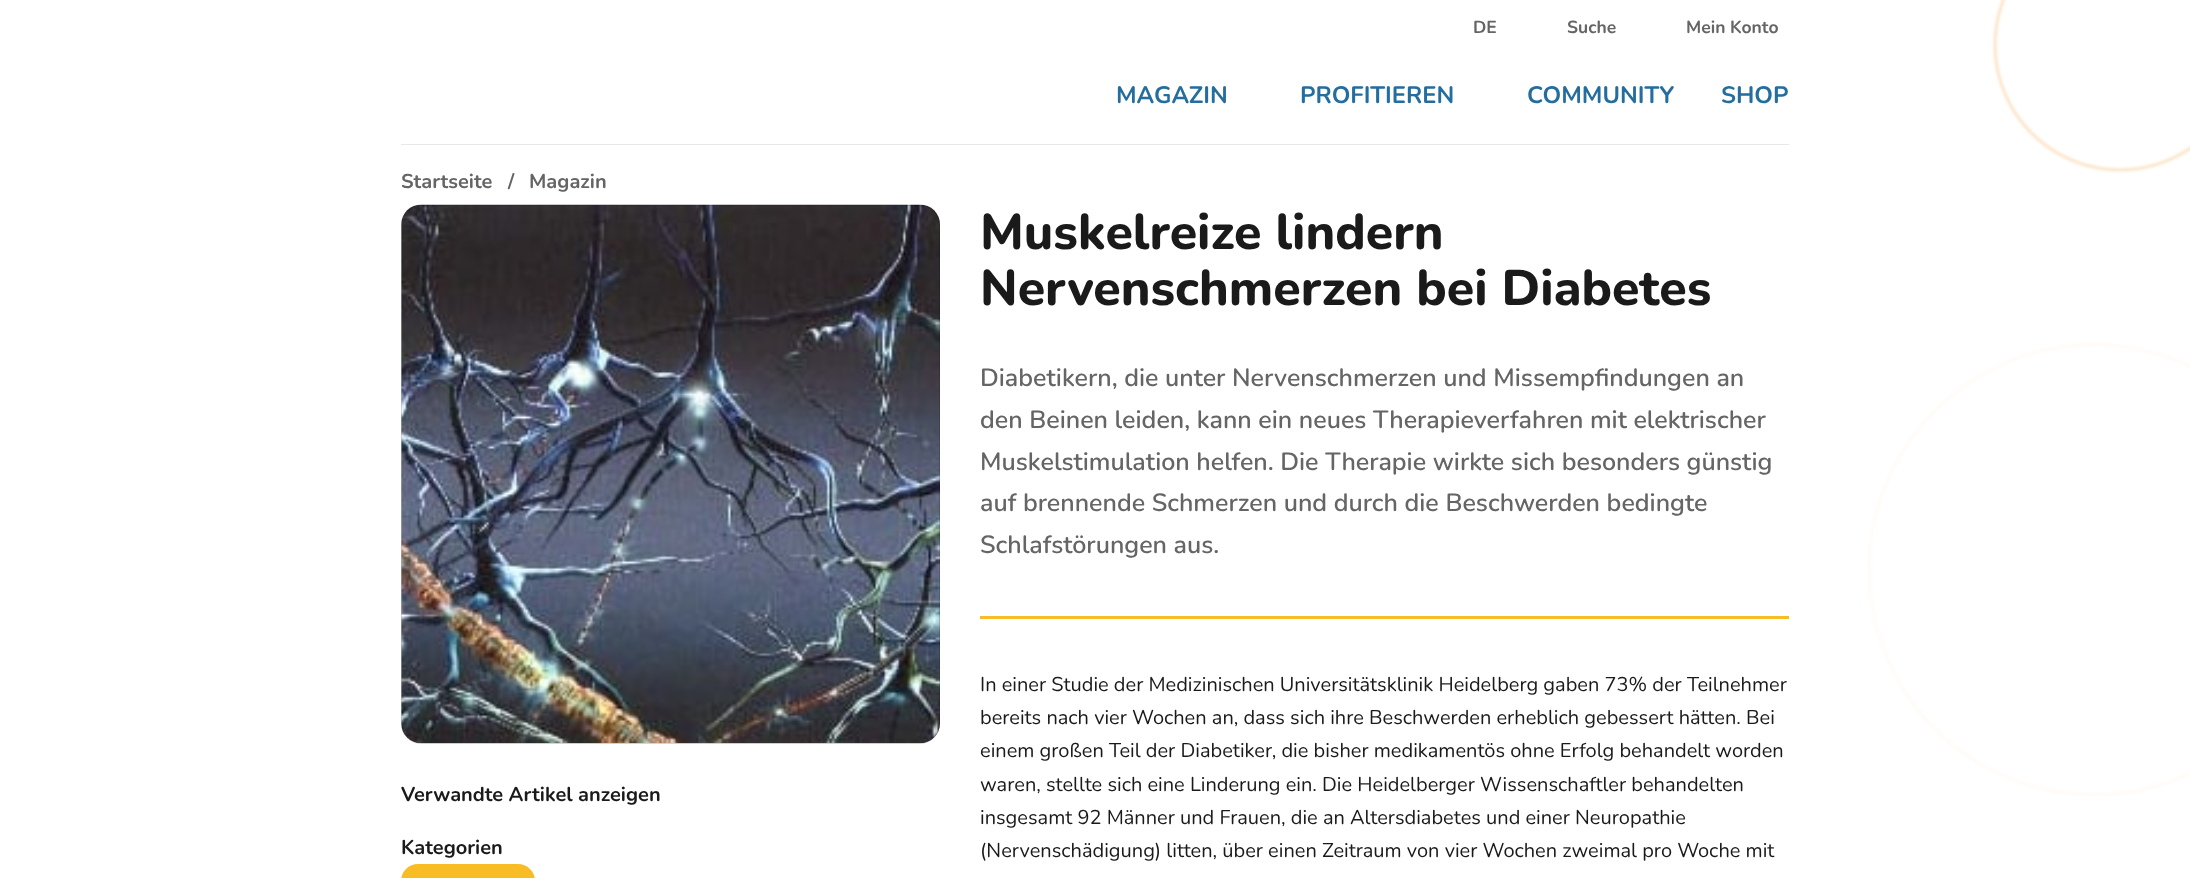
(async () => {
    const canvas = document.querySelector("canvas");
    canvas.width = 2190;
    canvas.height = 878;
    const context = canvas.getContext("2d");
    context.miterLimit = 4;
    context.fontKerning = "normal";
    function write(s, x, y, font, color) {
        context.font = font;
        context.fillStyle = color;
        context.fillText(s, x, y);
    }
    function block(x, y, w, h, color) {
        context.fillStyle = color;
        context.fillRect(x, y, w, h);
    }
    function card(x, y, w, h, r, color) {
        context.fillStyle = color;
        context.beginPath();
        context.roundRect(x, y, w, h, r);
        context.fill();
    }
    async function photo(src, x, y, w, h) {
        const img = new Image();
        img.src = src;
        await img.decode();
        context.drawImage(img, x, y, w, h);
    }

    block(0, 0, 2190, 878, "rgb(255, 255, 255)");
    block(401, 144, 1388, 1, "rgb(232, 232, 232)");
    write("DE", 1473, 33, "bold 17.5px Nunito", "rgb(101, 101, 101)");
    write("Suche", 1567, 33, "bold 17.5px Nunito", "rgb(101, 101, 101)");
    write("Mein Konto", 1686, 33, "bold 17.5px Nunito", "rgb(101, 101, 101)");
    write("MAGAZIN", 1116, 103, "bold 23.75px Nunito", "rgb(36, 109, 159)");
    write("PROFITIEREN", 1300, 103, "bold 23.75px Nunito", "rgb(36, 109, 159)");
    write("COMMUNITY", 1527, 103, "bold 23.75px Nunito", "rgb(36, 109, 159)");
    write("SHOP", 1721, 103, "bold 23.75px Nunito", "rgb(36, 109, 159)");
    write("Startseite", 401, 188, "bold 20px Nunito", "rgb(101, 101, 101)");
    write("/", 508, 188, "bold 20px Nunito", "rgb(101, 101, 101)");
    write("Magazin", 529, 188, "bold 20px Nunito", "rgb(101, 101, 101)");
    await photo("media/1.png", 401, 204, 539, 540);
    context.beginPath();
    context.roundRect(401.5, 205.5, 538, 538, 19.5);
    context.strokeStyle = "rgba(0, 0, 0, 0.15)";
    context.stroke();
    write("Muskelreize lindern", 980, 249, "800 50px Nunito", "rgb(26, 26, 26)");
    write("Nervenschmerzen bei Diabetes", 980, 305, "800 50px Nunito", "rgb(26, 26, 26)");
    write("Verwandte Artikel anzeigen", 401, 801, "bold 20px Nunito", "rgb(26, 26, 26)");
    write("Kategorien", 401, 854, "bold 20px Nunito", "rgb(26, 26, 26)");
    card(401, 864, 134, 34, 20, "rgb(248, 189, 36)");
    write("Diabetikern, die unter Nervenschmerzen und Missempfindungen an", 980, 386, "600 25px Nunito", "rgb(101, 101, 101)");
    write("den Beinen leiden, kann ein neues Therapieverfahren mit elektrischer", 980, 428, "600 25px Nunito", "rgb(101, 101, 101)");
    write("Muskelstimulation helfen. Die Therapie wirkte sich besonders günstig", 980, 470, "600 25px Nunito", "rgb(101, 101, 101)");
    write("auf brennende Schmerzen und durch die Beschwerden bedingte", 980, 511, "600 25px Nunito", "rgb(101, 101, 101)");
    write("Schlafstörungen aus.", 980, 553, "600 25px Nunito", "rgb(101, 101, 101)");
    block(980, 616, 809, 3, "rgb(248, 189, 36)");
    write("In einer Studie der Medizinischen Universitätsklinik Heidelberg gaben 73% der Teilnehmer", 980, 691, "20px Nunito", "rgb(26, 26, 26)");
    write("bereits nach vier Wochen an, dass sich ihre Beschwerden erheblich gebessert hätten. Bei", 980, 724, "20px Nunito", "rgb(26, 26, 26)");
    write("einem großen Teil der Diabetiker, die bisher medikamentös ohne Erfolg behandelt worden", 980, 757, "20px Nunito", "rgb(26, 26, 26)");
    write("waren, stellte sich eine Linderung ein. Die Heidelberger Wissenschaftler behandelten", 980, 791, "20px Nunito", "rgb(26, 26, 26)");
    write("insgesamt 92 Männer und Frauen, die an Altersdiabetes und einer Neuropathie", 980, 824, "20px Nunito", "rgb(26, 26, 26)");
    write("(Nervenschädigung) litten, über einen Zeitraum von vier Wochen zweimal pro Woche mit", 980, 857, "20px Nunito", "rgb(26, 26, 26)");
    await photo("media/2.png", 1867, 0, 323, 797);
})();
